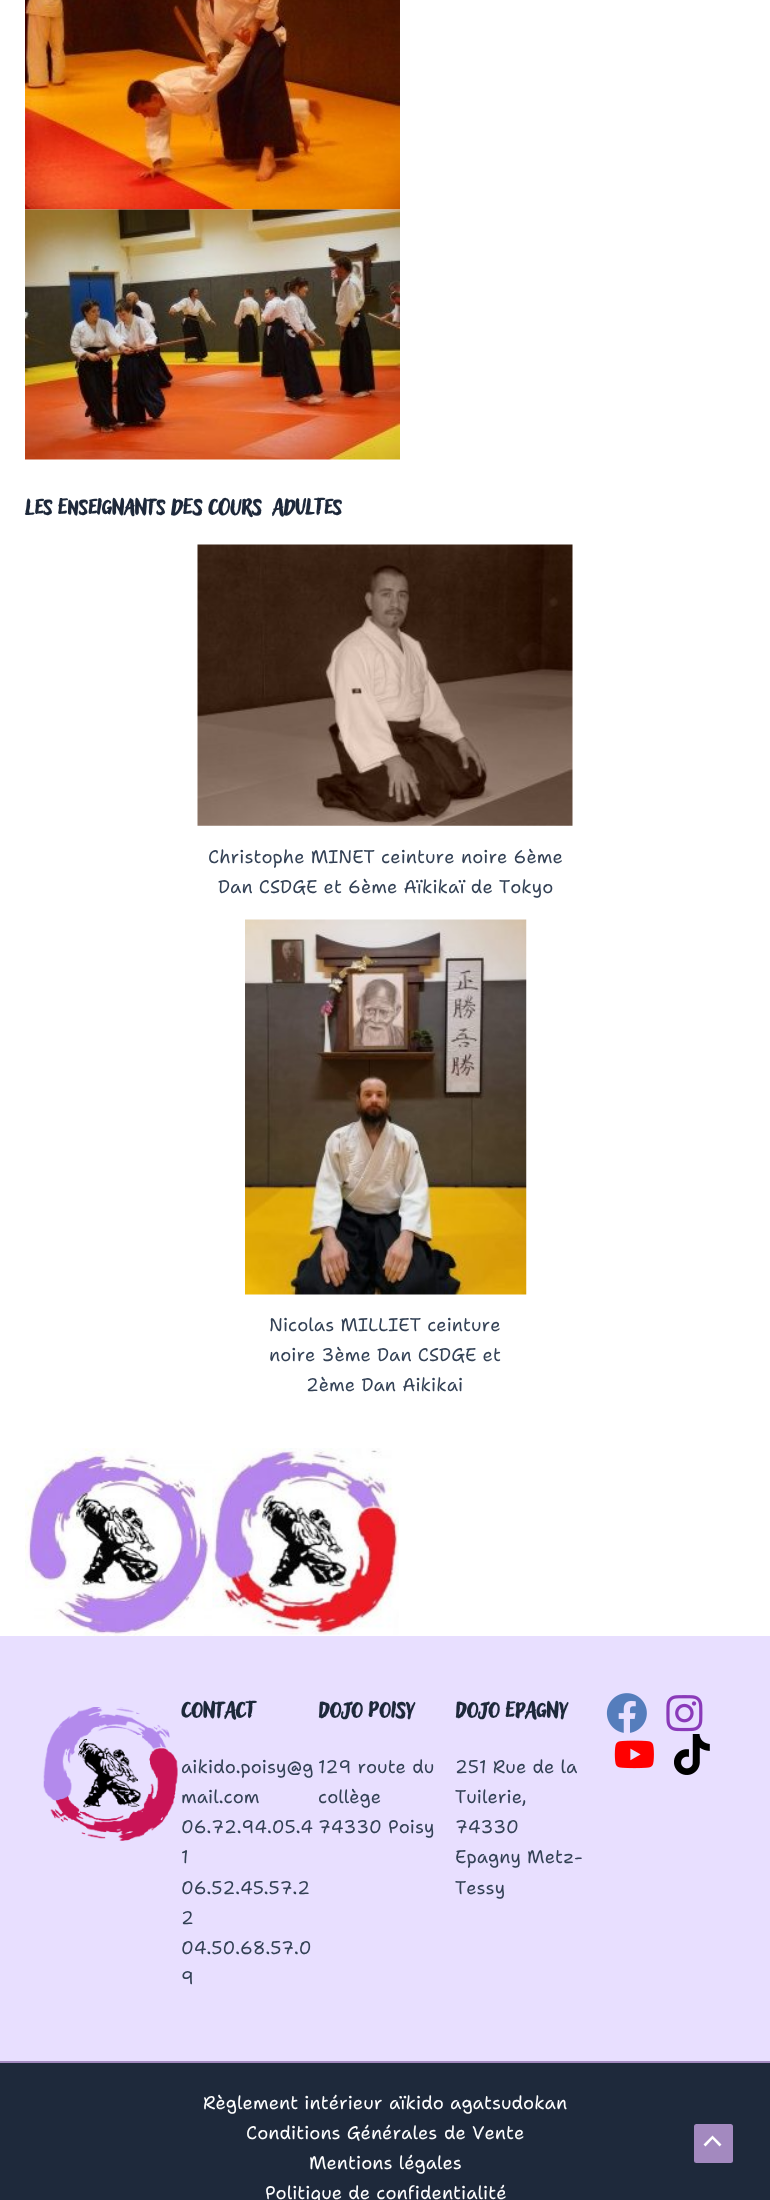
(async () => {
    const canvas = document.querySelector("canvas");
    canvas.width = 770;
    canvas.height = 2200;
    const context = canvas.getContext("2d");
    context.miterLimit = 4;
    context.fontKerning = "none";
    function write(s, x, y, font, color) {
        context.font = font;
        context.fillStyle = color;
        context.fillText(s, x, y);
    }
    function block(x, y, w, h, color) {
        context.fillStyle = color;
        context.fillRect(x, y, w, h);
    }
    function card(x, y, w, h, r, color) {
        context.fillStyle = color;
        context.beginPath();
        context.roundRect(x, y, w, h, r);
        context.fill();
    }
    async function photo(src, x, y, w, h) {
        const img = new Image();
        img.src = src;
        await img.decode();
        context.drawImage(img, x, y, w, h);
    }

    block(0, 0, 770, 2200, "rgb(255, 255, 255)");
    await photo("media/1.png", 25, 0, 375, 210);
    await photo("media/2.png", 25, 209, 375, 251);
    write("Les Enseignants des cours  Adultes", 25, 514, "bold 28.5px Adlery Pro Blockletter", "rgb(30, 41, 59)");
    await photo("media/3.png", 197, 544, 376, 282);
    write("Christophe MINET ceinture", 208, 863, "18.25px Shantell Sans", "rgb(51, 65, 85)");
    write("noire 6ème", 461, 863, "18.25px Shantell Sans", "rgb(51, 65, 85)");
    write("Dan CSDGE et 6ème Aïkikaï de Tokyo", 218, 893, "18.25px Shantell Sans", "rgb(51, 65, 85)");
    await photo("media/4.png", 245, 919, 282, 376);
    write("Nicolas MILLIET ceinture", 269, 1331, "18.25px Shantell Sans", "rgb(51, 65, 85)");
    write("noire 3ème Dan CSDGE et", 269, 1361, "18.25px Shantell Sans", "rgb(51, 65, 85)");
    write("2ème Dan Aikikai", 306, 1391, "18.25px Shantell Sans", "rgb(51, 65, 85)");
    await photo("media/5.png", 25, 1448, 188, 188);
    await photo("media/6.png", 212, 1448, 187, 187);
    block(0, 2061, 770, 2, "rgb(163, 137, 191)");
    block(0, 1636, 770, 425, "rgb(232, 223, 255)");
    await photo("media/7.png", 43, 1707, 135, 134);
    write("CONTACT", 181, 1717, "bold 28.5px Adlery Pro Blockletter", "rgb(30, 41, 59)");
    write("aikido.poisy@g", 181, 1773, "18.25px Shantell Sans", "rgb(51, 65, 85)");
    write("mail.com", 181, 1803, "18.25px Shantell Sans", "rgb(51, 65, 85)");
    write("06.72.94.05.4", 181, 1833, "18.25px Shantell Sans", "rgb(51, 65, 85)");
    write("1", 181, 1863, "18.25px Shantell Sans", "rgb(51, 65, 85)");
    write("06.52.45.57.2", 181, 1894, "18.25px Shantell Sans", "rgb(51, 65, 85)");
    write("2", 181, 1924, "18.25px Shantell Sans", "rgb(51, 65, 85)");
    write("04.50.68.57.0", 181, 1954, "18.25px Shantell Sans", "rgb(51, 65, 85)");
    write("9", 181, 1984, "18.25px Shantell Sans", "rgb(51, 65, 85)");
    write("DOJO POISY", 318, 1717, "bold 28.5px Adlery Pro Blockletter", "rgb(30, 41, 59)");
    write("129 route du", 318, 1773, "18.25px Shantell Sans", "rgb(51, 65, 85)");
    write("collège", 318, 1803, "18.25px Shantell Sans", "rgb(51, 65, 85)");
    write("74330 Poisy", 318, 1833, "18.25px Shantell Sans", "rgb(51, 65, 85)");
    write("DOJO EPAGNY", 455, 1717, "bold 28.5px Adlery Pro Blockletter", "rgb(30, 41, 59)");
    write("251 Rue de la", 455, 1773, "18.25px Shantell Sans", "rgb(51, 65, 85)");
    write("Tuilerie,", 455, 1803, "18.25px Shantell Sans", "rgb(51, 65, 85)");
    write("74330", 455, 1833, "18.25px Shantell Sans", "rgb(51, 65, 85)");
    write("Epagny Metz-", 455, 1863, "18.25px Shantell Sans", "rgb(51, 65, 85)");
    write("Tessy", 455, 1894, "18.25px Shantell Sans", "rgb(51, 65, 85)");
    await photo("media/8.png", 606, 1693, 41, 40);
    await photo("media/9.png", 666, 1695, 37, 37);
    await photo("media/10.png", 614, 1740, 40, 29);
    await photo("media/11.png", 674, 1734, 36, 41);
    block(0, 2063, 770, 137, "rgb(30, 41, 59)");
    write("Règlement intérieur", 203, 2109, "18.25px Shantell Sans", "rgb(255, 255, 255)");
    write("aïkido agatsudokan", 389, 2109, "18.25px Shantell Sans", "rgb(255, 255, 255)");
    write("Conditions Générales", 246, 2139, "18.25px Shantell Sans", "rgb(255, 255, 255)");
    write("de Vente", 444, 2139, "18.25px Shantell Sans", "rgb(255, 255, 255)");
    write("Mentions légales", 309, 2169, "18.25px Shantell Sans", "rgb(255, 255, 255)");
    write("Politique de confidentialité", 265, 2199, "18.25px Shantell Sans", "rgb(255, 255, 255)");
    card(694, 2124, 39, 39, 2.5, "rgb(163, 137, 191)");
    context.fillStyle = "rgb(255, 255, 255)";
    context.beginPath();
    context.moveTo(721.5, 2144.5);
    context.lineTo(712.5, 2135.5);
    context.lineTo(703.5, 2144.5);
    context.lineTo(705.5, 2146.5);
    context.lineTo(712.5, 2139);
    context.lineTo(719.5, 2146.5);
    context.closePath();
    context.fill();
})();
